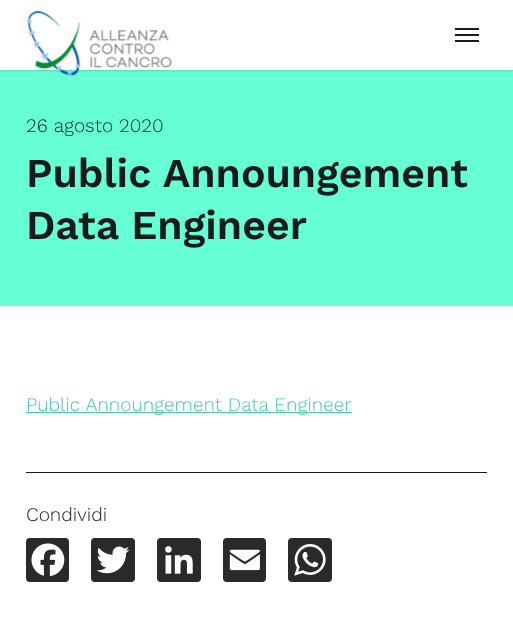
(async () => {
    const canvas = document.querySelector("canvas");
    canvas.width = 513;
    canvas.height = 628;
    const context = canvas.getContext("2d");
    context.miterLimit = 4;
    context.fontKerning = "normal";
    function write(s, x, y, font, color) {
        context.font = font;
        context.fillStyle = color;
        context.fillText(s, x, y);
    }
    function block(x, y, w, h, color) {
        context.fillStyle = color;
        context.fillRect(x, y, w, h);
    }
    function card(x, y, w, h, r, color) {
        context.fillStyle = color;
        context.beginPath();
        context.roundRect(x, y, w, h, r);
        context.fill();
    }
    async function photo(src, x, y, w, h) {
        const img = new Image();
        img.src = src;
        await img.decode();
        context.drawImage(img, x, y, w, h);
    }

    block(0, 0, 513, 628, "rgb(255, 255, 255)");
    block(0, 70, 513, 236, "rgb(102, 255, 213)");
    context.save();
    context.beginPath();
    context.rect(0, 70, 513, 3);
    context.clip();
    context.fillStyle = "rgba(0, 0, 0, 0.15)";
    context.filter = "blur(1.5px)";
    context.beginPath();
    context.rect(0, 1, 513, 70);
    context.fill();
    context.filter = "none";
    context.restore();
    await photo("media/1.png", 26, 10, 146, 66);
    block(455, 28, 24, 2, "rgb(26, 26, 26)");
    block(455, 34, 24, 2, "rgb(26, 26, 26)");
    block(455, 40, 24, 2, "rgb(26, 26, 26)");
    write("26 agosto 2020", 26, 132, "300 19.1px Work Sans", "rgb(26, 26, 26)");
    write("Public Announgement", 26, 187, "600 41px Work Sans", "rgb(26, 26, 26)");
    write("Data Engineer", 26, 239, "600 41px Work Sans", "rgb(26, 26, 26)");
    block(26, 412, 326, 1, "rgb(71, 198, 176)");
    write("Public Announgement Data Engineer", 26, 411, "300 19.1px Work Sans", "rgb(71, 198, 176)");
    block(26, 472, 461, 1, "rgb(26, 26, 26)");
    write("Condividi", 26, 521, "300 19.1px Work Sans", "rgb(26, 26, 26)");
    card(26, 538, 43, 44, 4, "rgb(42, 42, 42)");
    await photo("media/2.png", 31, 543, 34, 34);
    card(91, 538, 44, 44, 4, "rgb(42, 42, 42)");
    await photo("media/3.png", 96, 546, 34, 28);
    card(157, 538, 44, 44, 4, "rgb(42, 42, 42)");
    await photo("media/4.png", 165, 546, 28, 28);
    card(223, 538, 43, 44, 4, "rgb(42, 42, 42)");
    await photo("media/5.png", 229, 549, 31, 22);
    card(288, 538, 44, 44, 4, "rgb(42, 42, 42)");
    await photo("media/6.png", 294, 544, 32, 32);
})();
